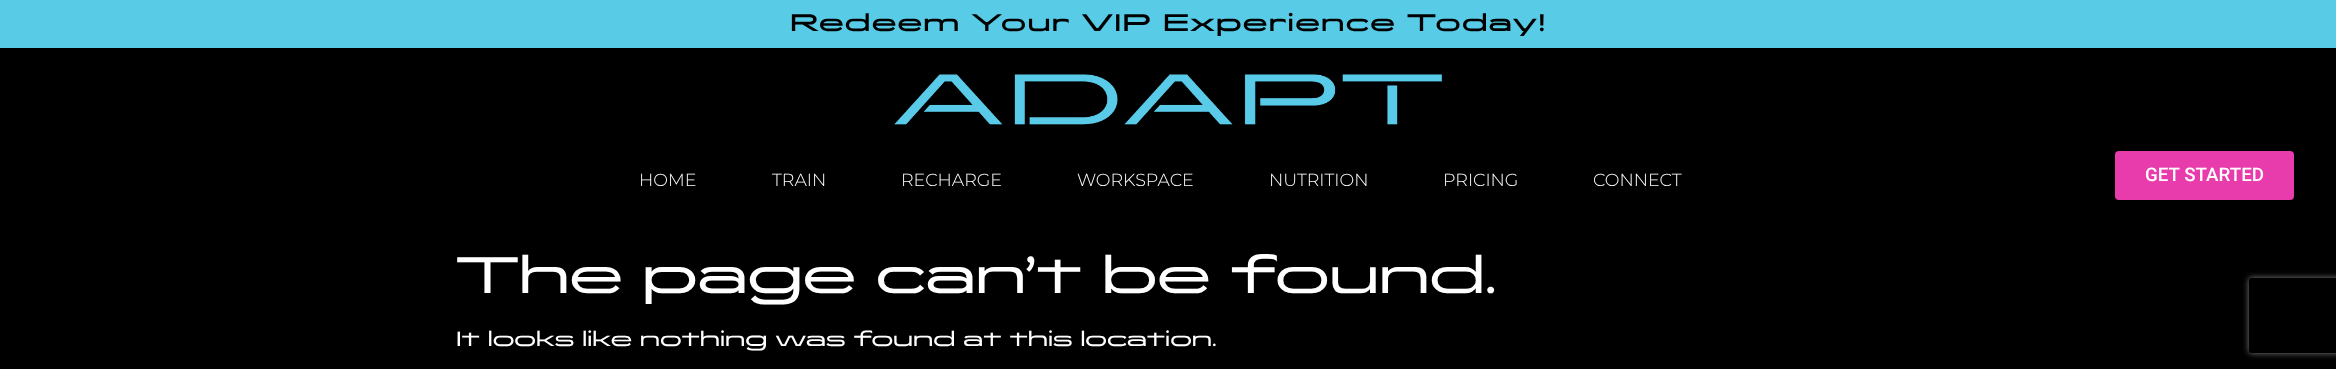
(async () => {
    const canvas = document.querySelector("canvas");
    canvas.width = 2336;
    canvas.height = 369;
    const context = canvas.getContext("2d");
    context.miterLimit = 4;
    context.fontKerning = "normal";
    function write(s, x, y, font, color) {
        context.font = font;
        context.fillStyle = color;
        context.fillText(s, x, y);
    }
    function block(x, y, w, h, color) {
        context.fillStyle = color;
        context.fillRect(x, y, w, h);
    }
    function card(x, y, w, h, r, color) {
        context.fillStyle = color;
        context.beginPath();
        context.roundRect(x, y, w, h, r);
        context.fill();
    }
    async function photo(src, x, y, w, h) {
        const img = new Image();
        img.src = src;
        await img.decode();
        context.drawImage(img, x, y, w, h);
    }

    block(0, 0, 2336, 369, "rgb(0, 0, 0)");
    block(0, 0, 2336, 48, "rgb(88, 203, 231)");
    context.letterSpacing = "2px";
    write("Redeem Your VIP Experience Today!", 790, 31, "bold 22.5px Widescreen", "rgb(0, 0, 0)");
    await photo("media/1.png", 894, 74, 548, 51);
    context.letterSpacing = "0px";
    write("HOME", 639, 186, "300 17.5px Montserrat", "rgb(255, 255, 255)");
    write("TRAIN", 772, 186, "300 17.5px Montserrat", "rgb(255, 255, 255)");
    write("RECHARGE", 901, 186, "300 17.5px Montserrat", "rgb(255, 255, 255)");
    write("WORKSPACE", 1077, 186, "300 17.5px Montserrat", "rgb(255, 255, 255)");
    write("NUTRITION", 1269, 186, "300 17.5px Montserrat", "rgb(255, 255, 255)");
    write("PRICING", 1443, 186, "300 17.5px Montserrat", "rgb(255, 255, 255)");
    write("CONNECT", 1593, 186, "300 17.5px Montserrat", "rgb(255, 255, 255)");
    card(2115, 151, 179, 49, 4, "rgb(233, 60, 172)");
    write("GET STARTED", 2145, 181, "500 18.75px Roboto", "rgb(255, 255, 255)");
    write("The page can’t be found.", 456, 293, "500 50px Widescreen", "rgb(255, 255, 255)");
    write("It looks like nothing was found at this location.", 456, 346, "500 20px Widescreen", "rgb(255, 255, 255)");
    context.save();
    context.beginPath();
    context.moveTo(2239, 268);
    context.lineTo(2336, 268);
    context.lineTo(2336, 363);
    context.lineTo(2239, 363);
    context.closePath();
    context.moveTo(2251.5, 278);
    context.lineTo(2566.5, 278);
    context.bezierCurveTo(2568, 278, 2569, 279, 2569, 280.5);
    context.lineTo(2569, 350.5);
    context.bezierCurveTo(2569, 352, 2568, 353, 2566.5, 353);
    context.lineTo(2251.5, 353);
    context.bezierCurveTo(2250, 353, 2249, 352, 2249, 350.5);
    context.lineTo(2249, 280.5);
    context.bezierCurveTo(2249, 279, 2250, 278, 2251.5, 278);
    context.closePath();
    context.clip("evenodd");
    context.fillStyle = "rgb(128, 128, 128)";
    context.filter = "blur(3px)";
    context.beginPath();
    context.roundRect(2249, 278, 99, 75, 2.5);
    context.fill();
    context.filter = "none";
    context.restore();
})();
